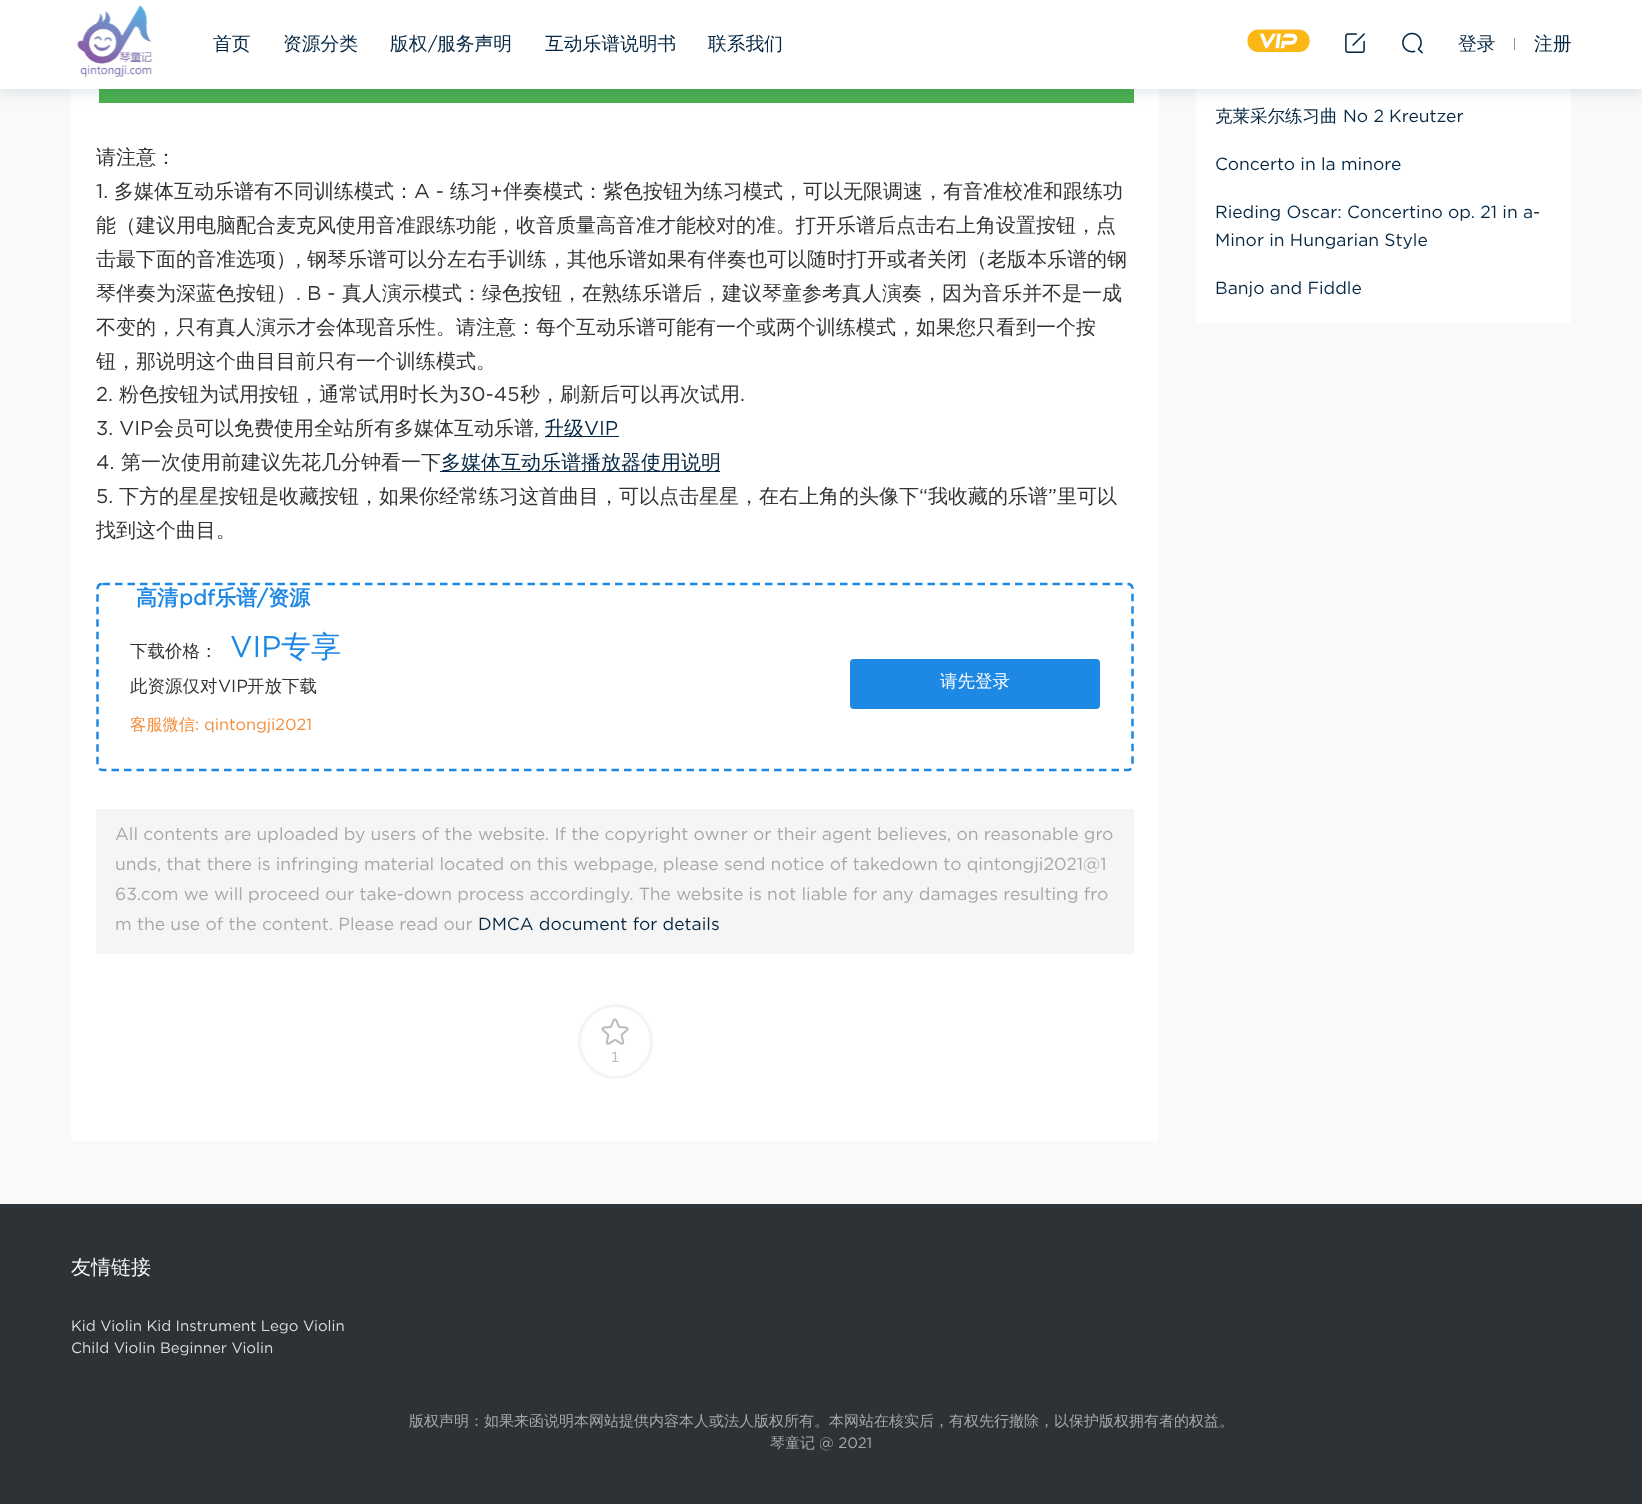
(async () => {
    const canvas = document.querySelector("canvas");
    canvas.width = 1642;
    canvas.height = 1504;
    const context = canvas.getContext("2d");
    context.miterLimit = 4;
    context.fontKerning = "normal";
    function write(s, x, y, font, color) {
        context.font = font;
        context.fillStyle = color;
        context.fillText(s, x, y);
    }
    function block(x, y, w, h, color) {
        context.fillStyle = color;
        context.fillRect(x, y, w, h);
    }
    function card(x, y, w, h, r, color) {
        context.fillStyle = color;
        context.beginPath();
        context.roundRect(x, y, w, h, r);
        context.fill();
    }
    async function photo(src, x, y, w, h) {
        const img = new Image();
        img.src = src;
        await img.decode();
        context.drawImage(img, x, y, w, h);
    }

    block(0, 0, 1642, 1504, "rgb(249, 249, 249)");
    card(71, -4, 1088, 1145, 4, "rgb(255, 255, 255)");
    block(99, 89, 1035, 14, "rgb(76, 175, 80)");
    card(1196, -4, 375, 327, 4, "rgb(255, 255, 255)");
    context.fillStyle = "rgba(17, 58, 93, 0.1)";
    context.filter = "blur(6px)";
    context.beginPath();
    context.rect(0, 5, 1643, 89);
    context.fill();
    context.filter = "none";
    block(0, 0, 1642, 89, "rgb(255, 255, 255)");
    await photo("media/1.png", 77, 5, 76, 72);
    write("首页", 213, 50, "500 18.75px WenQuanYi Zen Hei", "rgb(6, 39, 67)");
    write("资源分类", 283, 50, "500 18.75px WenQuanYi Zen Hei", "rgb(6, 39, 67)");
    write("版权", 390, 50, "500 18.75px WenQuanYi Zen Hei", "rgb(6, 39, 67)");
    write("/", 428, 50, "18.75px Gotham", "rgb(6, 39, 67)");
    write("服务声明", 437, 50, "500 18.75px WenQuanYi Zen Hei", "rgb(6, 39, 67)");
    write("互动乐谱说明书", 545, 50, "500 18.75px WenQuanYi Zen Hei", "rgb(6, 39, 67)");
    write("联系我们", 708, 50, "500 18.75px WenQuanYi Zen Hei", "rgb(6, 39, 67)");
    await photo("media/2.png", 1247, 29, 63, 24);
    await photo("media/3.png", 1345, 33, 20, 20);
    await photo("media/4.png", 1402, 32, 21, 22);
    write("登录", 1458, 50, "500 18.75px WenQuanYi Zen Hei", "rgb(6, 39, 67)");
    block(1514, 38, 1, 12, "rgb(138, 146, 169)");
    write("注册", 1534, 50, "500 18.75px WenQuanYi Zen Hei", "rgb(6, 39, 67)");
    write("请注意：", 96, 164, "500 20px WenQuanYi Zen Hei", "rgb(51, 51, 51)");
    write("1.", 96, 198, "20px Gotham", "rgb(51, 51, 51)");
    write("多媒体互动乐谱有不同训练模式：", 114, 198, "500 20px WenQuanYi Zen Hei", "rgb(51, 51, 51)");
    write("A -", 414, 198, "20px Gotham", "rgb(51, 51, 51)");
    write("练习", 450, 198, "500 20px WenQuanYi Zen Hei", "rgb(51, 51, 51)");
    write("+", 490, 198, "20px Gotham", "rgb(51, 51, 51)");
    write("伴奏模式：紫色按钮为练习模式，可以无限调速，有音准校准和跟练功", 503, 198, "500 20px WenQuanYi Zen Hei", "rgb(51, 51, 51)");
    write("能（建议用电脑配合麦克风使用音准跟练功能，收音质量高音准才能校对的准。打开乐谱后点击右上角设置按钮，点", 96, 232, "500 20px WenQuanYi Zen Hei", "rgb(51, 51, 51)");
    write("击最下面的音准选项）", 96, 266, "500 20px WenQuanYi Zen Hei", "rgb(51, 51, 51)");
    write(",", 296, 266, "20px Gotham", "rgb(51, 51, 51)");
    write("钢琴乐谱可以分左右手训练，其他乐谱如果有伴奏也可以随时打开或者关闭（老版本乐谱的钢", 307, 266, "500 20px WenQuanYi Zen Hei", "rgb(51, 51, 51)");
    write("琴伴奏为深蓝色按钮）", 96, 300, "500 20px WenQuanYi Zen Hei", "rgb(51, 51, 51)");
    write(". B -", 296, 300, "20px Gotham", "rgb(51, 51, 51)");
    write("真人演示模式：绿色按钮，在熟练乐谱后，建议琴童参考真人演奏，因为音乐并不是一成", 342, 300, "500 20px WenQuanYi Zen Hei", "rgb(51, 51, 51)");
    write("不变的，只有真人演示才会体现音乐性。请注意：每个互动乐谱可能有一个或两个训练模式，如果您只看到一个按", 96, 334, "500 20px WenQuanYi Zen Hei", "rgb(51, 51, 51)");
    write("钮，那说明这个曲目目前只有一个训练模式。", 96, 368, "500 20px WenQuanYi Zen Hei", "rgb(51, 51, 51)");
    write("2.", 96, 401, "20px Gotham", "rgb(51, 51, 51)");
    write("粉色按钮为试用按钮，通常试用时长为", 119, 401, "500 20px WenQuanYi Zen Hei", "rgb(51, 51, 51)");
    write("30-45", 459, 401, "20px Gotham", "rgb(51, 51, 51)");
    write("秒，刷新后可以再次试用", 520, 401, "500 20px WenQuanYi Zen Hei", "rgb(51, 51, 51)");
    write(".", 740, 401, "20px Gotham", "rgb(51, 51, 51)");
    write("3. VIP", 96, 435, "20px Gotham", "rgb(51, 51, 51)");
    write("会员可以免费使用全站所有多媒体互动乐谱", 154, 435, "500 20px WenQuanYi Zen Hei", "rgb(51, 51, 51)");
    write(",", 534, 435, "20px Gotham", "rgb(51, 51, 51)");
    block(545, 436, 74, 1, "rgb(6, 39, 67)");
    write("升级", 544, 435, "500 20px WenQuanYi Zen Hei", "rgb(6, 39, 67)");
    write("VIP", 584, 435, "20px Gotham", "rgb(6, 39, 67)");
    write("4.", 96, 469, "20px Gotham", "rgb(51, 51, 51)");
    write("第一次使用前建议先花几分钟看一下", 121, 469, "500 20px WenQuanYi Zen Hei", "rgb(51, 51, 51)");
    block(440, 471, 280, 1, "rgb(6, 39, 67)");
    write("多媒体互动乐谱播放器使用说明", 441, 469, "500 20px WenQuanYi Zen Hei", "rgb(6, 39, 67)");
    write("5.", 96, 503, "20px Gotham", "rgb(51, 51, 51)");
    write("下方的星星按钮是收藏按钮，如果你经常练习这首曲目，可以点击星星，在右上角的头像下", 119, 503, "500 20px WenQuanYi Zen Hei", "rgb(51, 51, 51)");
    write("“", 919, 503, "20px Gotham", "rgb(51, 51, 51)");
    write("我收藏的乐谱", 928, 503, "500 20px WenQuanYi Zen Hei", "rgb(51, 51, 51)");
    write("”", 1048, 503, "20px Gotham", "rgb(51, 51, 51)");
    write("里可以", 1057, 503, "500 20px WenQuanYi Zen Hei", "rgb(51, 51, 51)");
    write("找到这个曲目。", 96, 537, "500 20px WenQuanYi Zen Hei", "rgb(51, 51, 51)");
    context.beginPath();
    context.moveTo(102.5, 584);
    context.lineTo(1127.5, 584);
    context.bezierCurveTo(1130.5, 584, 1132.5, 586, 1132.5, 589);
    context.lineTo(1132.5, 765);
    context.bezierCurveTo(1132.5, 768, 1130.5, 770, 1127.5, 770);
    context.lineTo(102.5, 770);
    context.bezierCurveTo(99.5, 770, 97.5, 768, 97.5, 765);
    context.lineTo(97.5, 589);
    context.bezierCurveTo(97.5, 586, 99.5, 584, 102.5, 584);
    context.closePath();
    context.strokeStyle = "rgb(30, 136, 229)";
    context.lineWidth = 2.5;
    context.setLineDash([7.5, 5]);
    context.stroke();
    write("高清", 136, 605, "bold 21px WenQuanYi Zen Hei", "rgb(30, 136, 229)");
    write("pdf", 179, 605, "bold 21px Gotham", "rgb(30, 136, 229)");
    write("乐谱", 215, 605, "bold 21px WenQuanYi Zen Hei", "rgb(30, 136, 229)");
    write("/", 257, 605, "bold 21px Gotham", "rgb(30, 136, 229)");
    write("资源", 268, 605, "bold 21px WenQuanYi Zen Hei", "rgb(30, 136, 229)");
    write("下载价格：", 130, 657, "500 17.5px WenQuanYi Zen Hei", "rgb(51, 51, 51)");
    write("VIP", 230, 657, "30px Gotham", "rgb(30, 136, 229)");
    write("专享", 281, 657, "500 30px WenQuanYi Zen Hei", "rgb(30, 136, 229)");
    write("此资源仅对", 130, 692, "500 17.5px WenQuanYi Zen Hei", "rgb(51, 51, 51)");
    write("VIP", 218, 692, "17.5px Gotham", "rgb(51, 51, 51)");
    write("开放下载", 247, 692, "500 17.5px WenQuanYi Zen Hei", "rgb(51, 51, 51)");
    card(850, 659, 250, 50, 4, "rgb(30, 136, 229)");
    write("请先登录", 940, 687, "500 17.5px WenQuanYi Zen Hei", "rgb(255, 255, 255)");
    write("客服微信", 130, 730, "500 16.25px WenQuanYi Zen Hei", "rgb(245, 139, 54)");
    write(": qintongji2021", 195, 730, "16.25px Gotham", "rgb(245, 139, 54)");
    block(96, 809, 1038, 145, "rgb(245, 245, 245)");
    write("All contents are uploaded by users of the website. If the copyright owner or their agent believes, on reasonable gro", 115, 840, "17.5px Gotham", "rgb(167, 167, 167)");
    write("unds, that there is infringing material located on this webpage, please send notice of takedown to qintongji2021@1", 115, 870, "17.5px Gotham", "rgb(167, 167, 167)");
    write("63.com we will proceed our take-down process accordingly. The website is not liable for any damages resulting fro", 115, 900, "17.5px Gotham", "rgb(167, 167, 167)");
    write("m the use of the content. Please read our", 115, 930, "17.5px Gotham", "rgb(167, 167, 167)");
    write("DMCA document for details", 478, 930, "17.5px Gotham", "rgb(6, 39, 67)");
    context.beginPath();
    context.arc(615.5, 1041.5, 36, 0, Math.PI * 2);
    context.strokeStyle = "rgb(243, 244, 245)";
    context.lineWidth = 3;
    context.setLineDash([]);
    context.stroke();
    await photo("media/5.png", 601, 1018, 28, 27);
    write("1", 611, 1062, "15px Liberation Sans", "rgb(187, 187, 187)");
    write("克莱采尔练习曲", 1215, 122, "500 17.5px WenQuanYi Zen Hei", "rgb(6, 39, 67)");
    write("No 2 Kreutzer", 1343, 122, "17.5px Gotham", "rgb(6, 39, 67)");
    write("Concerto in la minore", 1215, 170, "17.5px Gotham", "rgb(6, 39, 67)");
    write("Rieding Oscar: Concertino op. 21 in a-", 1215, 218, "17.5px Gotham", "rgb(6, 39, 67)");
    write("Minor in Hungarian Style", 1215, 246, "17.5px Gotham", "rgb(6, 39, 67)");
    write("Banjo and Fiddle", 1215, 294, "17.5px Gotham", "rgb(6, 39, 67)");
    block(0, 1204, 1642, 300, "rgb(45, 50, 55)");
    write("友情链接", 71, 1274, "500 20px WenQuanYi Zen Hei", "rgb(245, 245, 245)");
    write("Kid Violin Kid Instrument Lego Violin", 71, 1331, "15px Gotham", "rgb(220, 220, 220)");
    write("Child Violin Beginner Violin", 71, 1353, "15px Gotham", "rgb(220, 220, 220)");
    write("版权声明：如果来函说明本网站提供内容本人或法人版权所有。本网站在核实后，有权先行撤除，以保护版权拥有者的权益。", 409, 1426, "500 15px WenQuanYi Zen Hei", "rgb(167, 167, 167)");
    write("琴童记", 770, 1448, "500 15px WenQuanYi Zen Hei", "rgb(167, 167, 167)");
    write("@ 2021", 819, 1448, "15px Gotham", "rgb(167, 167, 167)");
})();
